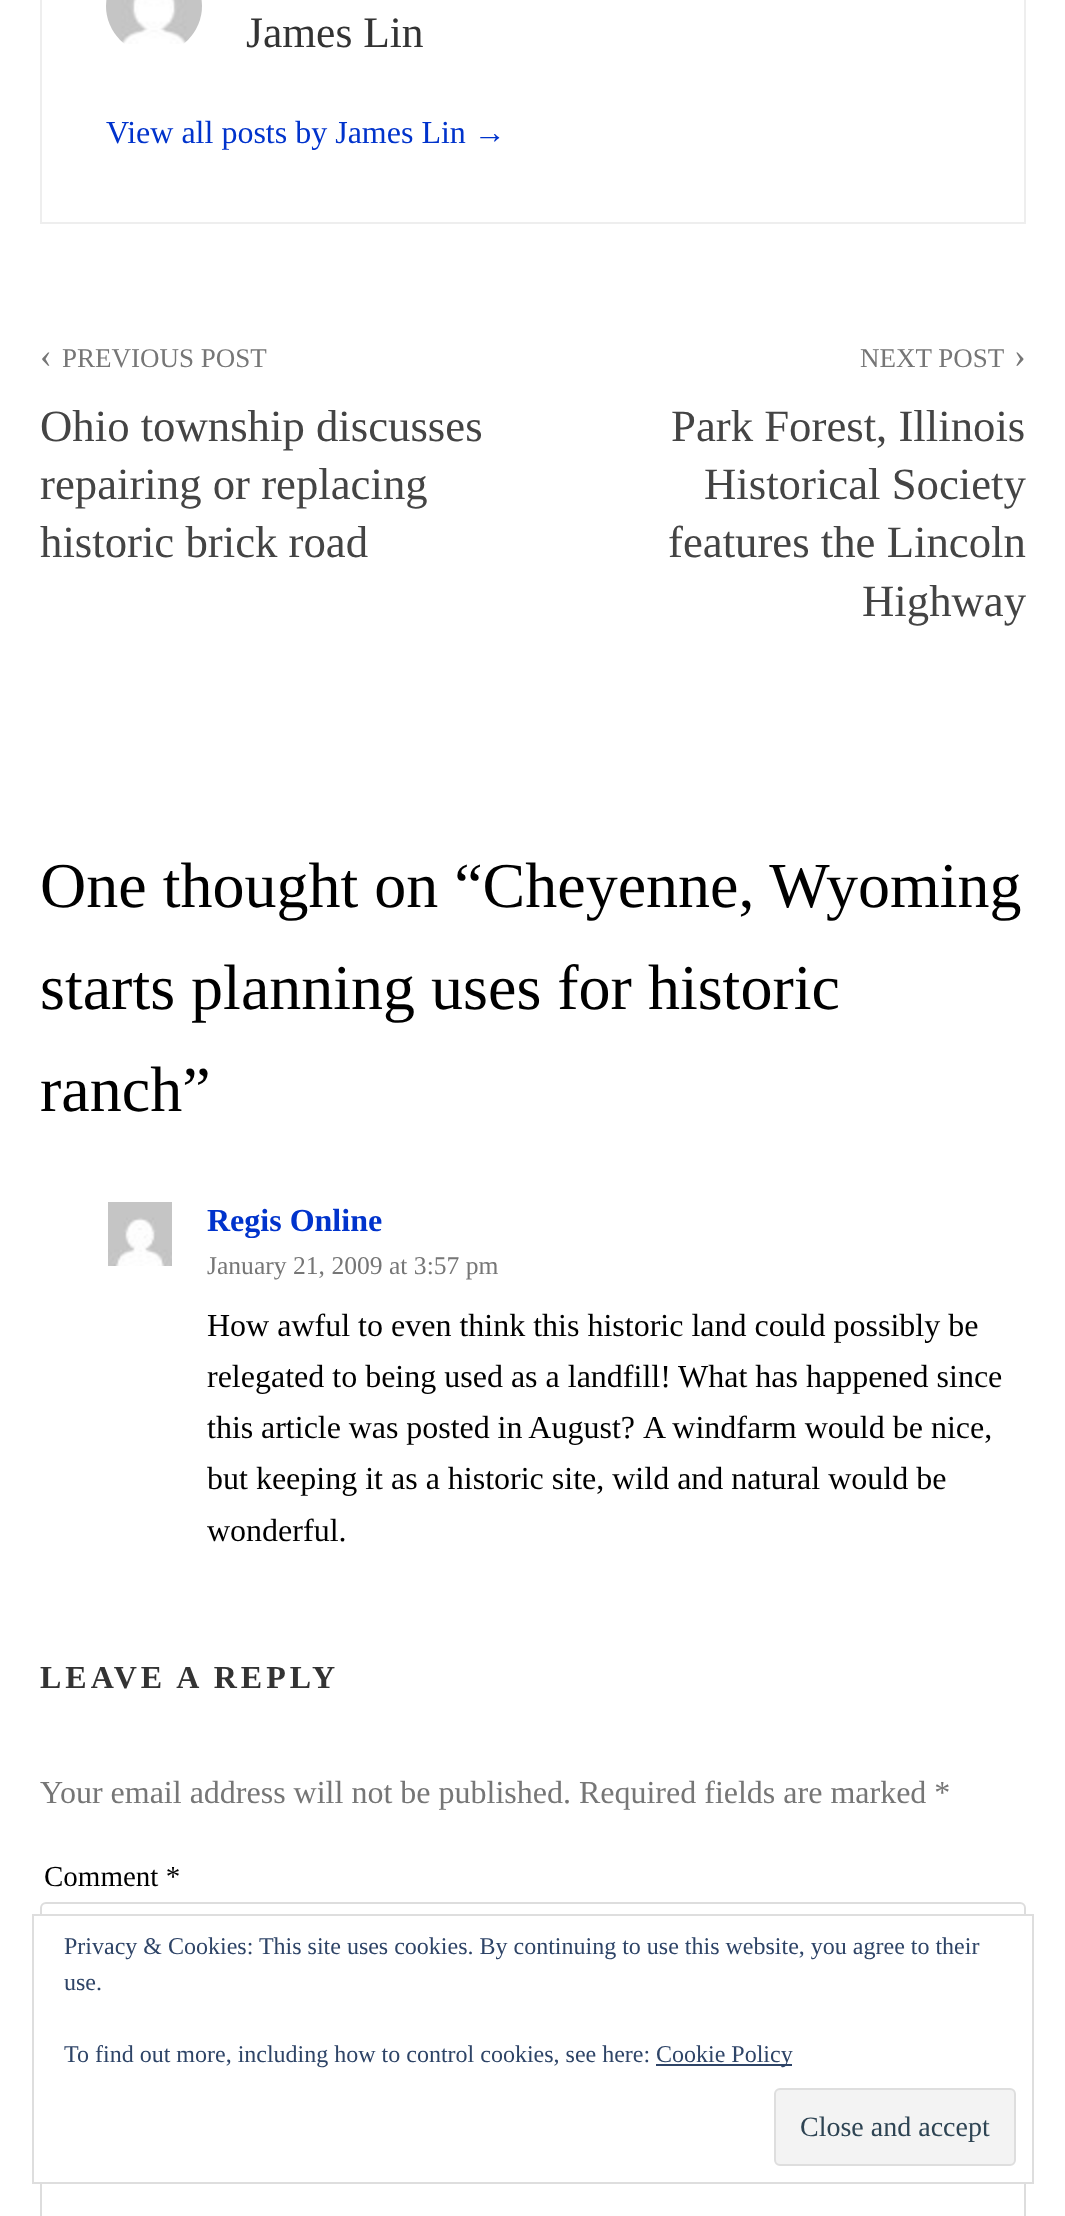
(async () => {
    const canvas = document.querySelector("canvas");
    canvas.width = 1065;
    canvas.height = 2216;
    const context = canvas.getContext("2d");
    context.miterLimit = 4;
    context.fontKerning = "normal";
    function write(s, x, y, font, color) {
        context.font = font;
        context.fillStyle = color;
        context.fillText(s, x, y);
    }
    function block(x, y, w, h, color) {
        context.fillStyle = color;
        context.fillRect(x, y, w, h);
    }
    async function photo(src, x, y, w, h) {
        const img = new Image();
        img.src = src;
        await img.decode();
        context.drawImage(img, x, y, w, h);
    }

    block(0, 0, 1065, 2216, "rgb(255, 255, 255)");
    context.strokeStyle = "rgb(238, 238, 238)";
    context.lineWidth = 2;
    context.strokeRect(41, -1, 984, 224);
    await photo("media/1.png", 106, 0, 96, 44);
    write("James Lin", 246, 47, "43.5px Liberation Serif", "rgb(51, 51, 51)");
    write("View all posts by James Lin →", 106, 143, "32px Liberation Serif", "rgb(0, 51, 204)");
    write("‹", 40, 367, "35px Liberation Serif", "rgb(118, 118, 118)");
    write("PREVIOUS POST", 62, 367, "27px Liberation Serif", "rgb(118, 118, 118)");
    write("Ohio township discusses", 40, 441, "44.75px Liberation Serif", "rgb(68, 68, 68)");
    write("repairing or replacing", 40, 499, "44.75px Liberation Serif", "rgb(68, 68, 68)");
    write("historic brick road", 40, 557, "44.75px Liberation Serif", "rgb(68, 68, 68)");
    write("NEXT POST", 860, 367, "27px Liberation Serif", "rgb(118, 118, 118)");
    write("›", 1014, 367, "35px Liberation Serif", "rgb(118, 118, 118)");
    write("Park Forest, Illinois", 671, 441, "44.75px Liberation Serif", "rgb(68, 68, 68)");
    write("Historical Society", 704, 499, "44.75px Liberation Serif", "rgb(68, 68, 68)");
    write("features the Lincoln", 668, 557, "44.75px Liberation Serif", "rgb(68, 68, 68)");
    write("Highway", 862, 616, "44.75px Liberation Serif", "rgb(68, 68, 68)");
    write("One thought on “Cheyenne, Wyoming", 40, 907, "64px Liberation Serif", "rgb(0, 0, 0)");
    write("starts planning uses for historic", 40, 1009, "64px Liberation Serif", "rgb(0, 0, 0)");
    write("ranch”", 40, 1111, "64px Liberation Serif", "rgb(0, 0, 0)");
    await photo("media/2.png", 108, 1202, 64, 64);
    write("Regis Online", 207, 1231, "bold 32px Liberation Serif", "rgb(0, 51, 204)");
    write("January 21, 2009 at 3:57 pm", 207, 1274, "25.6px Liberation Serif", "rgb(118, 118, 118)");
    write("How awful to even think this historic land could possibly be", 207, 1336, "32px Liberation Serif", "rgb(0, 0, 0)");
    write("relegated to being used as a landfill!", 207, 1387, "32px Liberation Serif", "rgb(0, 0, 0)");
    write("What has happened since", 678, 1387, "32px Liberation Serif", "rgb(0, 0, 0)");
    context.wordSpacing = "-0.25px";
    write("this article was posted in August?", 207, 1438, "32px Liberation Serif", "rgb(0, 0, 0)");
    context.wordSpacing = "0px";
    write("A windfarm would be nice,", 643, 1438, "32px Liberation Serif", "rgb(0, 0, 0)");
    write("but keeping it as a historic site, wild and natural would be", 207, 1489, "32px Liberation Serif", "rgb(0, 0, 0)");
    write("wonderful.", 207, 1541, "32px Liberation Serif", "rgb(0, 0, 0)");
    context.letterSpacing = "4px";
    write("LEAVE A REPLY", 40, 1688, "bold 32px Liberation Serif", "rgb(51, 51, 51)");
    context.letterSpacing = "0px";
    write("Your email address will not be published. Required fields are marked *", 40, 1803, "32px Liberation Serif", "rgb(118, 118, 118)");
    write("Comment *", 44, 1886, "29px Liberation Serif", "rgb(0, 0, 0)");
    context.beginPath();
    context.roundRect(41, 1903, 984, 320, 5);
    context.strokeStyle = "rgb(221, 221, 221)";
    context.stroke();
    block(40, 1916, 986, 266, "rgb(255, 255, 255)");
    context.strokeStyle = "rgb(222, 222, 222)";
    context.strokeRect(33, 1915, 1000, 268);
    write("Privacy & Cookies: This site uses cookies. By continuing to use this website, you agree to their", 64, 1954, "24px Liberation Serif", "rgb(46, 68, 103)");
    write("use.", 64, 1990, "24px Liberation Serif", "rgb(46, 68, 103)");
    write("To find out more, including how to control cookies, see here:", 64, 2062, "24px Liberation Serif", "rgb(46, 68, 103)");
    block(656, 2064, 136, 2, "rgb(46, 68, 103)");
    write("Cookie Policy", 656, 2062, "24px Liberation Serif", "rgb(46, 68, 103)");
    context.fillStyle = "rgb(243, 243, 243)";
    context.beginPath();
    context.roundRect(775, 2089, 240, 76, 5);
    context.fill();
    context.stroke();
    write("Close and accept", 800, 2136, "28px Liberation Serif", "rgb(46, 68, 83)");
})();
